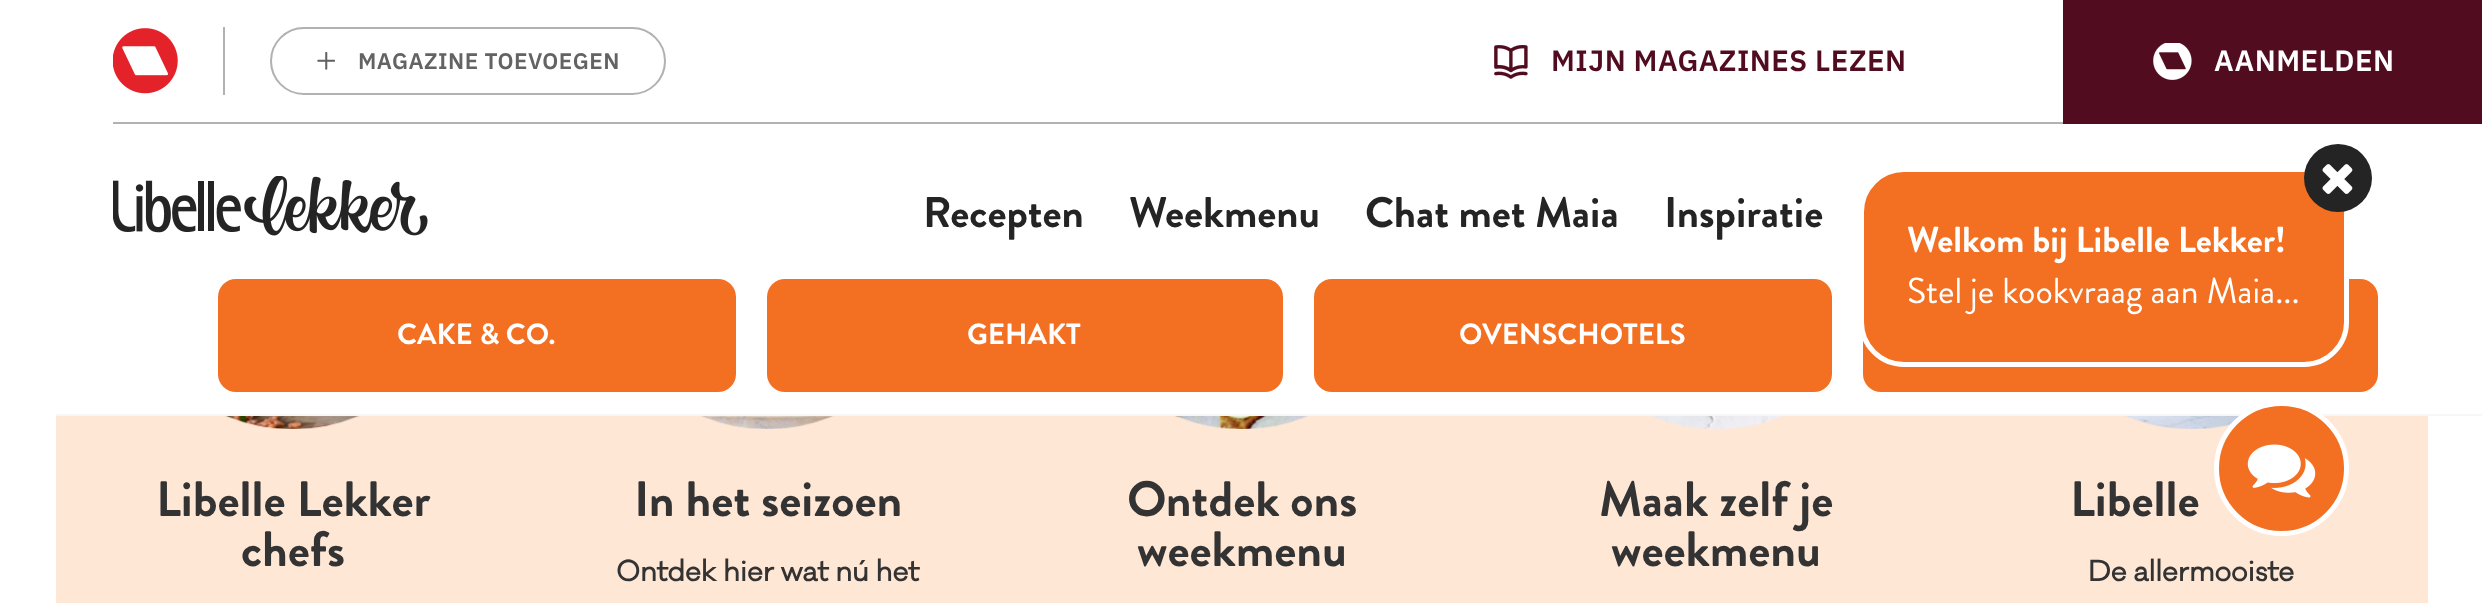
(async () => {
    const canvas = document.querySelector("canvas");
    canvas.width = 2482;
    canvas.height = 603;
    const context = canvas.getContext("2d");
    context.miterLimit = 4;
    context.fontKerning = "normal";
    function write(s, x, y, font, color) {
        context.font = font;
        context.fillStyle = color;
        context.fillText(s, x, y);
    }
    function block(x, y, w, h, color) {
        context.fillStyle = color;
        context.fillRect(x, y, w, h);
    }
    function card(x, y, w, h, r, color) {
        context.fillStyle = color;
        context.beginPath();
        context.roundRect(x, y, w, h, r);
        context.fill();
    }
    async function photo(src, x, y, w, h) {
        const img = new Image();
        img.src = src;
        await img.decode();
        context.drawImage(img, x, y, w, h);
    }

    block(0, 0, 2482, 603, "rgb(255, 255, 255)");
    block(56, 414, 2426, 2, "rgb(247, 247, 247)");
    block(113, 122, 1950, 2, "rgb(178, 178, 178)");
    block(223, 27, 2, 68, "rgb(178, 177, 177)");
    await photo("media/1.png", 113, 28, 65, 66);
    context.beginPath();
    context.roundRect(271, 28, 394, 66, 33);
    context.strokeStyle = "rgb(178, 177, 177)";
    context.lineWidth = 2;
    context.stroke();
    await photo("media/2.png", 317, 52, 18, 18);
    context.letterSpacing = "0.5px";
    write("MAGAZINE TOEVOEGEN", 358, 69, "600 22.5px IBM Plex Sans", "rgb(100, 99, 99)");
    await photo("media/3.png", 1494, 45, 34, 34);
    write("MIJN MAGAZINES LEZEN", 1551, 71, "600 29.25px IBM Plex Sans", "rgb(82, 12, 32)");
    block(2063, 0, 419, 124, "rgb(82, 12, 32)");
    await photo("media/4.png", 2153, 43, 39, 37);
    write("AANMELDEN", 2214, 71, "600 29.25px IBM Plex Sans", "rgb(255, 255, 255)");
    await photo("media/5.png", 113, 176, 315, 60);
    context.letterSpacing = "0px";
    write("Recepten", 923, 227, "bold 42.75px Brandon Grotesque", "rgb(36, 36, 36)");
    write("Weekmenu", 1129, 227, "bold 42.75px Brandon Grotesque", "rgb(36, 36, 36)");
    write("Chat met Maia", 1365, 227, "bold 42.75px Brandon Grotesque", "rgb(36, 36, 36)");
    write("Inspiratie", 1664, 227, "bold 42.75px Brandon Grotesque", "rgb(36, 36, 36)");
    card(218, 279, 518, 113, 18, "rgb(243, 111, 33)");
    write("CAKE & CO.", 397, 344, "bold 29.25px Brandon Grotesque", "rgb(255, 255, 255)");
    card(767, 279, 516, 113, 18, "rgb(243, 111, 33)");
    write("GEHAKT", 967, 344, "bold 29.25px Brandon Grotesque", "rgb(255, 255, 255)");
    card(1314, 279, 518, 113, 18, "rgb(243, 111, 33)");
    write("OVENSCHOTELS", 1459, 344, "bold 29.25px Brandon Grotesque", "rgb(255, 255, 255)");
    card(1863, 279, 515, 113, 18, "rgb(243, 111, 33)");
    block(56, 416, 2372, 187, "rgb(255, 231, 214)");
    await photo("media/6.png", 225, 416, 135, 13);
    write("Libelle Lekker", 156, 516, "bold 49.5px Brandon Grotesque", "rgb(51, 51, 51)");
    write("chefs", 241, 566, "bold 49.5px Brandon Grotesque", "rgb(51, 51, 51)");
    await photo("media/7.png", 700, 416, 135, 13);
    write("In het seizoen", 634, 516, "bold 49.5px Brandon Grotesque", "rgb(51, 51, 51)");
    write("Ontdek hier wat nú het", 616, 581, "bold 27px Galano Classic", "rgb(51, 51, 51)");
    await photo("media/8.png", 1174, 416, 136, 13);
    write("Ontdek ons", 1127, 516, "bold 49.5px Brandon Grotesque", "rgb(51, 51, 51)");
    write("weekmenu", 1137, 566, "bold 49.5px Brandon Grotesque", "rgb(51, 51, 51)");
    await photo("media/9.png", 1649, 416, 135, 13);
    write("Maak zelf je", 1599, 516, "bold 49.5px Brandon Grotesque", "rgb(51, 51, 51)");
    write("weekmenu", 1611, 566, "bold 49.5px Brandon Grotesque", "rgb(51, 51, 51)");
    await photo("media/10.png", 2124, 416, 115, 13);
    write("Libelle", 2070, 516, "bold 49.5px Brandon Grotesque", "rgb(51, 51, 51)");
    write("De allermooiste", 2088, 581, "bold 27px Galano Classic", "rgb(51, 51, 51)");
    context.fillStyle = "rgb(243, 111, 33)";
    context.beginPath();
    context.roundRect(1861.5, 169.5, 485, 195, 42.5);
    context.fill();
    context.strokeStyle = "rgb(255, 255, 255)";
    context.lineWidth = 5;
    context.stroke();
    context.fillStyle = "rgb(36, 36, 36)";
    context.beginPath();
    context.arc(2338, 178, 34, 0, Math.PI * 2);
    context.fill();
    await photo("media/11.png", 2322, 164, 31, 30);
    write("Welkom bij Libelle Lekker!", 1907, 252, "bold 36px Brandon Grotesque", "rgb(255, 255, 255)");
    write("Stel je kookvraag aan Maia...", 1907, 303, "36px Brandon Grotesque", "rgb(255, 255, 255)");
    context.fillStyle = "rgb(243, 111, 33)";
    context.beginPath();
    context.arc(2281.5, 468.5, 65, 0, Math.PI * 2);
    context.fill();
    context.stroke();
    await photo("media/12.png", 2247, 444, 69, 54);
})();
